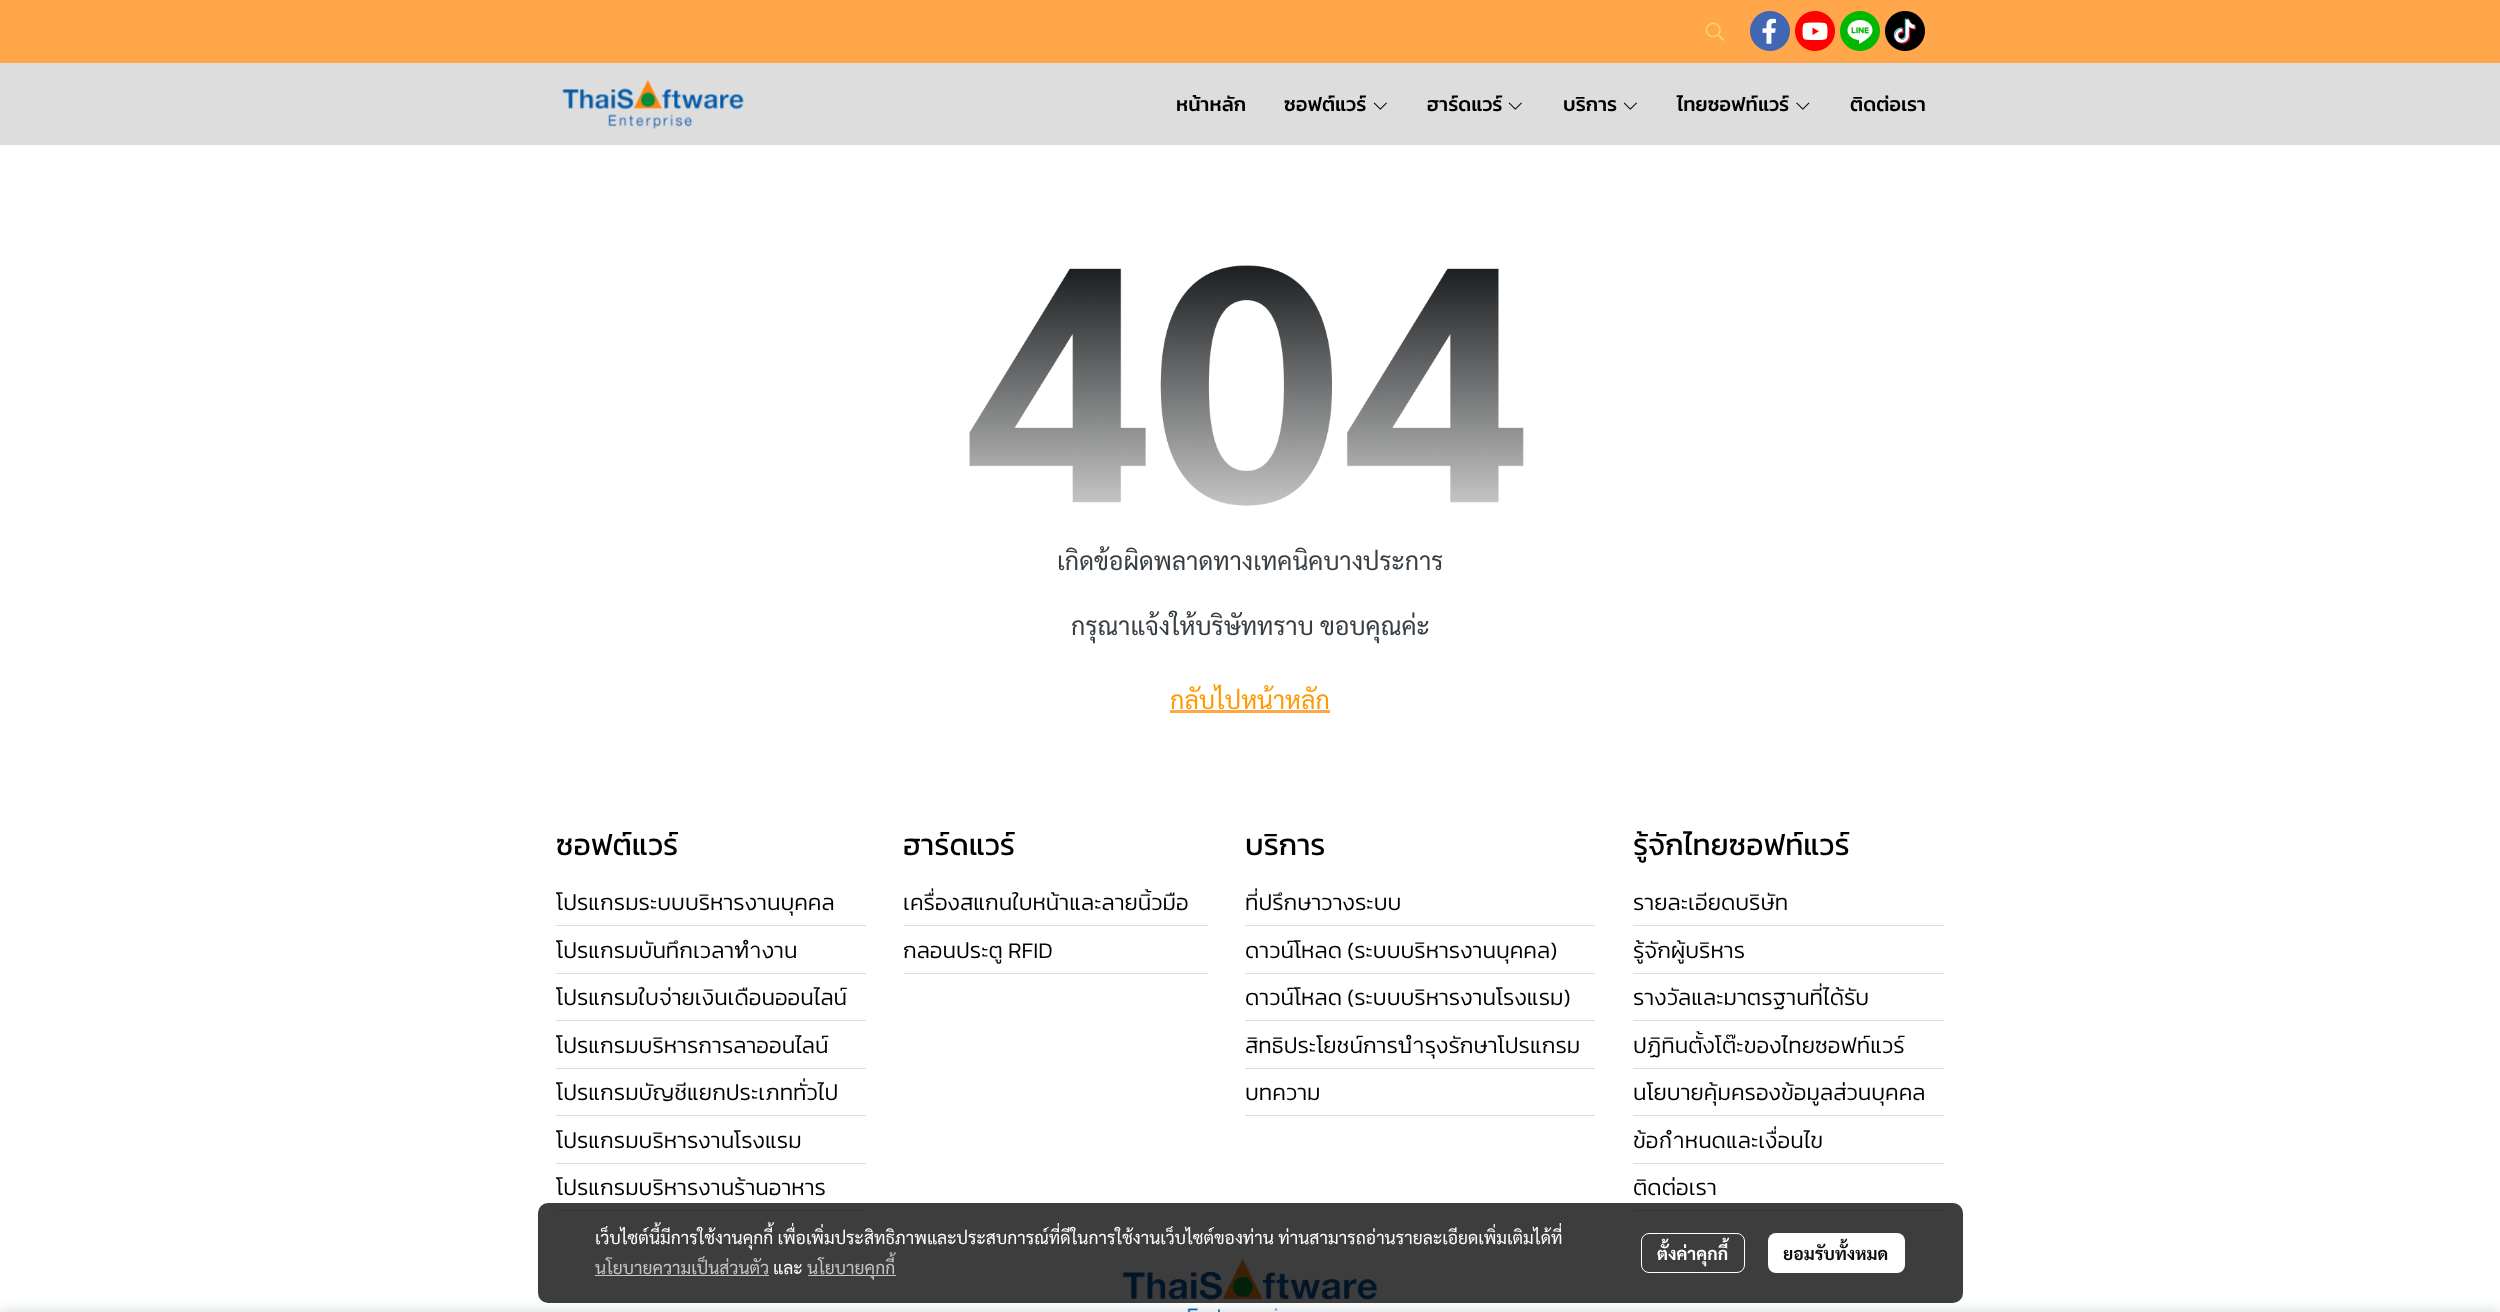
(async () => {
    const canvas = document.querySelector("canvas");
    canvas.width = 2500;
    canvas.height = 1312;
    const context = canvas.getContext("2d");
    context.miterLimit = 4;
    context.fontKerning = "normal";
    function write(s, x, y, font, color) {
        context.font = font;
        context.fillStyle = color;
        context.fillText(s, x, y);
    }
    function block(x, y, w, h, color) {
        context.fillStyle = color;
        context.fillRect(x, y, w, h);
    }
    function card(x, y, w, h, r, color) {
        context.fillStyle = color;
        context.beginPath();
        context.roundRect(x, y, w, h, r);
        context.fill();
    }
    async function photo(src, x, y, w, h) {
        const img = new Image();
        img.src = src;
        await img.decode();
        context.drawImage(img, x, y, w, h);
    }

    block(0, 0, 2500, 1312, "rgb(255, 255, 255)");
    block(0, 0, 2500, 63, "rgb(255, 167, 74)");
    await photo("media/1.png", 1705, 22, 20, 19);
    await photo("media/2.png", 1750, 11, 40, 40);
    await photo("media/3.png", 1795, 11, 40, 40);
    await photo("media/4.png", 1840, 11, 40, 40);
    await photo("media/5.png", 1885, 11, 40, 40);
    block(0, 63, 2500, 82, "rgb(221, 221, 221)");
    await photo("media/6.png", 562, 79, 183, 50);
    write("หน้าหลัก", 1176, 111, "500 20px Kanit", "rgb(0, 0, 0)");
    write("ซอฟต์แวร์", 1284, 111, "500 20px Kanit", "rgb(0, 0, 0)");
    await photo("media/7.png", 1373, 102, 14, 8);
    write("ฮาร์ดแวร์", 1427, 111, "500 20px Kanit", "rgb(0, 0, 0)");
    await photo("media/7.png", 1508, 102, 14, 8);
    write("บริการ", 1563, 111, "500 20px Kanit", "rgb(0, 0, 0)");
    await photo("media/7.png", 1623, 102, 14, 8);
    write("ไทยซอฟท์แวร์", 1677, 111, "500 20px Kanit", "rgb(0, 0, 0)");
    await photo("media/8.png", 1796, 102, 14, 8);
    write("ติดต่อเรา", 1850, 111, "500 20px Kanit", "rgb(0, 0, 0)");
    await photo("media/9.png", 969, 265, 555, 241);
    write("เกิดข้อผิดพลาดทางเทคนิคบางประการ", 1057, 570, "25px Sarabun", "rgb(55, 62, 68)");
    write("กรุณาแจ้งให้บริษัททราบ ขอบคุณค่ะ", 1071, 635, "25px Sarabun", "rgb(55, 62, 68)");
    write("กลับไปหน้าหลัก", 1170, 709, "25px Sarabun", "rgb(255, 153, 0)");
    block(1170, 710, 160, 3, "rgb(255, 167, 74)");
    write("ซอฟต์แวร์", 556, 855, "30px Kanit", "rgb(0, 0, 0)");
    block(556, 925, 310, 1, "rgb(221, 221, 221)");
    write("โปรแกรมระบบบริหารงานบุคคล", 556, 910, "300 22.5px Kanit", "rgb(0, 0, 0)");
    block(556, 973, 310, 1, "rgb(221, 221, 221)");
    write("โปรแกรมบันทึกเวลาทำงาน", 556, 958, "300 22.5px Kanit", "rgb(0, 0, 0)");
    block(556, 1020, 310, 1, "rgb(221, 221, 221)");
    write("โปรแกรมใบจ่ายเงินเดือนออนไลน์", 556, 1005, "300 22.5px Kanit", "rgb(0, 0, 0)");
    block(556, 1068, 310, 1, "rgb(221, 221, 221)");
    write("โปรแกรมบริหารการลาออนไลน์", 556, 1053, "300 22.5px Kanit", "rgb(0, 0, 0)");
    block(556, 1115, 310, 1, "rgb(221, 221, 221)");
    write("โปรแกรมบัญชีแยกประเภททั่วไป", 556, 1100, "300 22.5px Kanit", "rgb(0, 0, 0)");
    block(556, 1163, 310, 1, "rgb(221, 221, 221)");
    write("โปรแกรมบริหารงานโรงแรม", 556, 1148, "300 22.5px Kanit", "rgb(0, 0, 0)");
    block(556, 1210, 310, 1, "rgb(221, 221, 221)");
    write("โปรแกรมบริหารงานร้านอาหาร", 556, 1195, "300 22.5px Kanit", "rgb(0, 0, 0)");
    write("ฮาร์ดแวร์", 903, 855, "30px Kanit", "rgb(0, 0, 0)");
    block(904, 925, 304, 1, "rgb(221, 221, 221)");
    write("เครื่องสแกนใบหน้าและลายนิ้วมือ", 903, 910, "300 22.5px Kanit", "rgb(0, 0, 0)");
    block(904, 973, 304, 1, "rgb(221, 221, 221)");
    write("กลอนประตู RFID", 903, 958, "300 22.5px Kanit", "rgb(0, 0, 0)");
    write("บริการ", 1245, 855, "30px Kanit", "rgb(0, 0, 0)");
    block(1245, 925, 350, 1, "rgb(221, 221, 221)");
    write("ที่ปรึกษาวางระบบ", 1245, 910, "300 22.5px Kanit", "rgb(0, 0, 0)");
    block(1245, 973, 350, 1, "rgb(221, 221, 221)");
    write("ดาวน์โหลด (ระบบบริหารงานบุคคล)", 1245, 958, "300 22.5px Kanit", "rgb(0, 0, 0)");
    block(1245, 1020, 350, 1, "rgb(221, 221, 221)");
    write("ดาวน์โหลด (ระบบบริหารงานโรงแรม)", 1245, 1005, "300 22.5px Kanit", "rgb(0, 0, 0)");
    block(1245, 1068, 350, 1, "rgb(221, 221, 221)");
    write("สิทธิประโยชน์การบำรุงรักษาโปรแกรม", 1245, 1053, "300 22.5px Kanit", "rgb(0, 0, 0)");
    block(1245, 1115, 350, 1, "rgb(221, 221, 221)");
    write("บทความ", 1245, 1100, "300 22.5px Kanit", "rgb(0, 0, 0)");
    write("รู้จักไทยซอฟท์แวร์", 1633, 855, "30px Kanit", "rgb(0, 0, 0)");
    block(1633, 925, 311, 1, "rgb(221, 221, 221)");
    write("รายละเอียดบริษัท", 1633, 910, "300 22.5px Kanit", "rgb(0, 0, 0)");
    block(1633, 973, 311, 1, "rgb(221, 221, 221)");
    write("รู้จักผู้บริหาร", 1633, 958, "300 22.5px Kanit", "rgb(0, 0, 0)");
    block(1633, 1020, 311, 1, "rgb(221, 221, 221)");
    write("รางวัลและมาตรฐานที่ได้รับ", 1633, 1005, "300 22.5px Kanit", "rgb(0, 0, 0)");
    block(1633, 1068, 311, 1, "rgb(221, 221, 221)");
    write("ปฏิทินตั้งโต๊ะของไทยซอฟท์แวร์", 1633, 1053, "300 22.5px Kanit", "rgb(0, 0, 0)");
    block(1633, 1115, 311, 1, "rgb(221, 221, 221)");
    write("นโยบายคุ้มครองข้อมูลส่วนบุคคล", 1633, 1100, "300 22.5px Kanit", "rgb(0, 0, 0)");
    block(1633, 1163, 311, 1, "rgb(221, 221, 221)");
    write("ข้อกำหนดและเงื่อนไข", 1633, 1148, "300 22.5px Kanit", "rgb(0, 0, 0)");
    block(1633, 1210, 311, 1, "rgb(221, 221, 221)");
    write("ติดต่อเรา", 1633, 1195, "300 22.5px Kanit", "rgb(0, 0, 0)");
    await photo("media/10.png", 1122, 1258, 256, 54);
    context.fillStyle = "rgba(0, 53, 74, 0.15)";
    context.filter = "blur(6px)";
    context.beginPath();
    context.rect(0, 1310, 2500, 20);
    context.fill();
    context.filter = "none";
    card(538, 1203, 1425, 100, 10, "rgba(0, 0, 0, 0.76)");
    write("เว็บไซต์นี้มีการใช้งานคุกกี้ เพื่อเพิ่มประสิทธิภาพและประสบการณ์ที่ดีในการใช้งานเว็บไซต์ของท่าน ท่านสามารถอ่านรายละเอียดเพิ่มเติมได้ที่", 595, 1244, "17.5px Sarabun", "rgb(255, 255, 255)");
    write("นโยบายความเป็นส่วนตัว", 595, 1274, "17.5px Sarabun", "rgb(197, 197, 197)");
    write("และ", 773, 1274, "17.5px Sarabun", "rgb(255, 255, 255)");
    block(595, 1275, 174, 1, "rgb(197, 197, 197)");
    block(808, 1275, 88, 1, "rgb(197, 197, 197)");
    write("นโยบายคุกกี้", 807, 1274, "17.5px Sarabun", "rgb(197, 197, 197)");
    context.beginPath();
    context.roundRect(1641.5, 1233.5, 103, 39, 7.5);
    context.strokeStyle = "rgb(255, 255, 255)";
    context.stroke();
    write("ตั้งค่าคุกกี้", 1657, 1260, "bold 17.5px Sarabun", "rgb(255, 255, 255)");
    card(1768, 1233, 137, 40, 8, "rgb(255, 255, 255)");
    write("ยอมรับทั้งหมด", 1783, 1260, "bold 17.5px Sarabun", "rgb(13, 13, 13)");
})();
